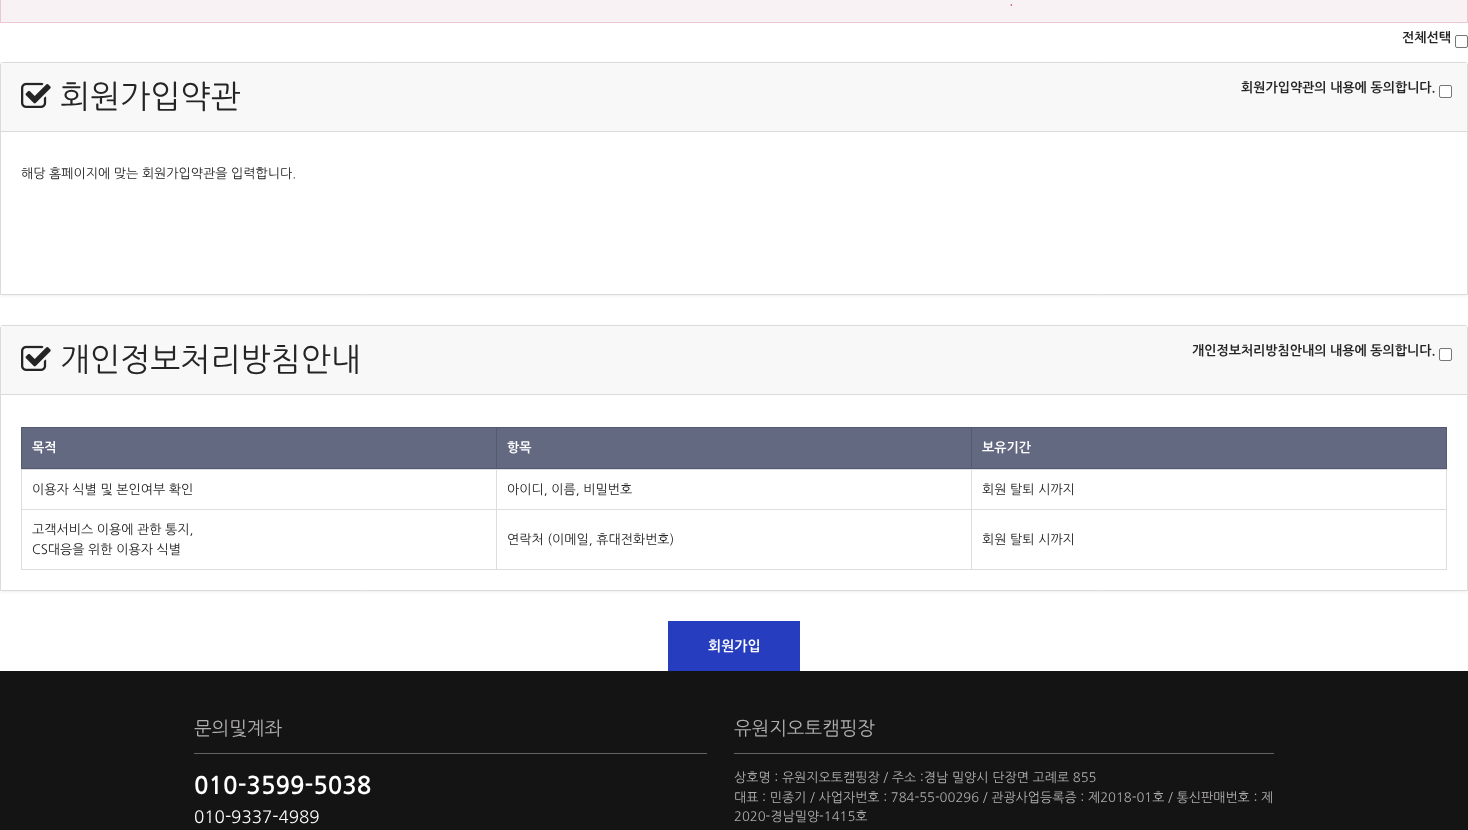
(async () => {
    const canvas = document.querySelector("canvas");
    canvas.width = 1468;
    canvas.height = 830;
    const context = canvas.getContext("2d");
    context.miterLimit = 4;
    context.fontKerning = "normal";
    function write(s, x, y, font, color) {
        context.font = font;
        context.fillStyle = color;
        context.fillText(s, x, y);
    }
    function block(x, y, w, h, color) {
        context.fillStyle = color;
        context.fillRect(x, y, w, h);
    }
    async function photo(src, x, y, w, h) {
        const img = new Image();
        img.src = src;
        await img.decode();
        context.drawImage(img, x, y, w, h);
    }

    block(0, 0, 1468, 830, "rgb(255, 255, 255)");
    context.fillStyle = "rgb(249, 242, 244)";
    context.beginPath();
    context.rect(0.5, -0.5, 1467, 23);
    context.fill();
    context.strokeStyle = "rgb(236, 199, 210)";
    context.stroke();
    write(".", 1009, 5, "15px NanumGothic", "rgb(199, 37, 78)");
    write("전체선택", 1402, 42, "bold 13px NanumGothic", "rgb(36, 36, 36)");
    context.beginPath();
    context.roundRect(1455.5, 35.5, 12, 12, 1.5);
    context.strokeStyle = "rgb(118, 118, 118)";
    context.stroke();
    context.save();
    context.beginPath();
    context.moveTo(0, 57);
    context.lineTo(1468, 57);
    context.lineTo(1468, 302);
    context.lineTo(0, 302);
    context.closePath();
    context.moveTo(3, 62);
    context.lineTo(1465, 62);
    context.bezierCurveTo(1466.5, 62, 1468, 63.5, 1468, 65);
    context.lineTo(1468, 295);
    context.lineTo(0, 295);
    context.lineTo(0, 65);
    context.bezierCurveTo(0, 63.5, 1.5, 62, 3, 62);
    context.closePath();
    context.clip("evenodd");
    context.fillStyle = "rgb(238, 238, 238)";
    context.filter = "blur(1.5px)";
    context.beginPath();
    context.roundRect(0, 63, 1468, 233, 3);
    context.fill();
    context.filter = "none";
    context.restore();
    context.beginPath();
    context.roundRect(0.5, 62.5, 1467, 232, [2.5, 2.5, 0, 0]);
    context.strokeStyle = "rgb(219, 219, 219)";
    context.stroke();
    block(1, 63, 1466, 68, "rgb(248, 248, 248)");
    block(1, 131, 1466, 1, "rgb(219, 219, 219)");
    await photo("media/1.png", 21, 82, 30, 26);
    write("회원가입약관", 60, 108, "32px NanumGothic", "rgb(36, 36, 36)");
    write("회원가입약관의 내용에 동의합니다.", 1241, 92, "bold 13px NanumGothic", "rgb(36, 36, 36)");
    context.fillStyle = "rgb(255, 255, 255)";
    context.beginPath();
    context.roundRect(1439.5, 85.5, 12, 12, 1.5);
    context.fill();
    context.strokeStyle = "rgb(118, 118, 118)";
    context.stroke();
    write("해당 홈페이지에 맞는 회원가입약관을 입력합니다.", 21, 178, "13px NanumGothic", "rgb(36, 36, 36)");
    context.save();
    context.beginPath();
    context.moveTo(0, 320);
    context.lineTo(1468, 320);
    context.lineTo(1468, 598);
    context.lineTo(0, 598);
    context.closePath();
    context.moveTo(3, 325);
    context.lineTo(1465, 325);
    context.bezierCurveTo(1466.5, 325, 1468, 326.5, 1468, 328);
    context.lineTo(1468, 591);
    context.lineTo(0, 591);
    context.lineTo(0, 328);
    context.bezierCurveTo(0, 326.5, 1.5, 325, 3, 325);
    context.closePath();
    context.clip("evenodd");
    context.fillStyle = "rgb(238, 238, 238)";
    context.filter = "blur(1.5px)";
    context.beginPath();
    context.roundRect(0, 326, 1468, 266, 3);
    context.fill();
    context.filter = "none";
    context.restore();
    context.beginPath();
    context.roundRect(0.5, 325.5, 1467, 265, [2.5, 2.5, 0, 0]);
    context.strokeStyle = "rgb(219, 219, 219)";
    context.stroke();
    block(1, 326, 1466, 68, "rgb(248, 248, 248)");
    block(1, 394, 1466, 1, "rgb(219, 219, 219)");
    await photo("media/1.png", 21, 345, 30, 26);
    write("개인정보처리방침안내", 60, 371, "32px NanumGothic", "rgb(36, 36, 36)");
    write("개인정보처리방침안내의 내용에 동의합니다.", 1192, 355, "bold 13px NanumGothic", "rgb(36, 36, 36)");
    context.fillStyle = "rgb(255, 255, 255)";
    context.beginPath();
    context.roundRect(1439.5, 348.5, 12, 12, 1.5);
    context.fill();
    context.strokeStyle = "rgb(118, 118, 118)";
    context.stroke();
    block(22, 428, 474, 40, "rgb(100, 105, 130)");
    block(971, 427, 476, 1, "rgb(85, 89, 113)");
    block(1446, 427, 1, 42, "rgb(85, 89, 113)");
    block(971, 468, 476, 1, "rgb(85, 89, 113)");
    block(971, 427, 1, 42, "rgb(85, 89, 113)");
    block(496, 427, 476, 1, "rgb(85, 89, 113)");
    block(496, 468, 476, 1, "rgb(85, 89, 113)");
    block(496, 427, 1, 42, "rgb(85, 89, 113)");
    block(21, 427, 476, 1, "rgb(85, 89, 113)");
    block(21, 468, 476, 1, "rgb(85, 89, 113)");
    block(21, 427, 1, 42, "rgb(85, 89, 113)");
    write("목적", 32, 452, "bold 13px NanumGothic", "rgb(255, 255, 255)");
    block(497, 428, 474, 40, "rgb(100, 105, 130)");
    write("항목", 507, 452, "bold 13px NanumGothic", "rgb(255, 255, 255)");
    block(972, 428, 474, 40, "rgb(100, 105, 130)");
    write("보유기간", 982, 452, "bold 13px NanumGothic", "rgb(255, 255, 255)");
    block(971, 469, 476, 1, "rgb(221, 221, 221)");
    block(971, 509, 476, 1, "rgb(221, 221, 221)");
    block(1446, 509, 1, 61, "rgb(221, 221, 221)");
    block(971, 569, 476, 1, "rgb(221, 221, 221)");
    block(971, 509, 1, 61, "rgb(221, 221, 221)");
    block(496, 509, 476, 1, "rgb(221, 221, 221)");
    block(971, 469, 1, 41, "rgb(221, 221, 221)");
    block(496, 469, 476, 1, "rgb(221, 221, 221)");
    block(496, 569, 476, 1, "rgb(221, 221, 221)");
    block(496, 509, 1, 61, "rgb(221, 221, 221)");
    block(21, 509, 476, 1, "rgb(221, 221, 221)");
    block(496, 469, 1, 41, "rgb(221, 221, 221)");
    block(21, 469, 476, 1, "rgb(221, 221, 221)");
    block(21, 569, 476, 1, "rgb(221, 221, 221)");
    block(21, 509, 1, 61, "rgb(221, 221, 221)");
    block(21, 469, 1, 41, "rgb(221, 221, 221)");
    write("이용자 식별 및 본인여부 확인", 32, 494, "13px NanumGothic", "rgb(36, 36, 36)");
    write("아이디, 이름, 비밀번호", 507, 494, "13px NanumGothic", "rgb(36, 36, 36)");
    block(1446, 469, 1, 41, "rgb(221, 221, 221)");
    write("회원 탈퇴 시까지", 982, 494, "13px NanumGothic", "rgb(36, 36, 36)");
    write("고객서비스 이용에 관한 통지,", 32, 534, "13px NanumGothic", "rgb(36, 36, 36)");
    write("CS대응을 위한 이용자 식별", 32, 554, "13px NanumGothic", "rgb(36, 36, 36)");
    write("연락처 (이메일, 휴대전화번호)", 507, 544, "13px NanumGothic", "rgb(36, 36, 36)");
    write("회원 탈퇴 시까지", 982, 544, "13px NanumGothic", "rgb(36, 36, 36)");
    block(668, 621, 132, 50, "rgb(37, 61, 190)");
    write("회원가입", 708, 651, "bold 14px NanumGothic", "rgb(255, 255, 255)");
    block(0, 671, 1468, 159, "rgb(20, 20, 20)");
    write("문의및계좌", 194, 735, "18.75px NanumGothic", "rgb(175, 173, 173)");
    block(194, 753, 513, 1, "rgb(99, 99, 99)");
    write("010-3599-5038", 194, 794, "bold 24px NanumGothic", "rgb(255, 255, 255)");
    write("010-9337-4989", 194, 823, "17px NanumGothic", "rgb(255, 255, 255)");
    write("유원지오토캠핑장", 734, 735, "18.75px NanumGothic", "rgb(175, 173, 173)");
    block(734, 753, 540, 1, "rgb(99, 99, 99)");
    write("상호명 : 유원지오토캠핑장 / 주소 :경남 밀양시 단장면 고례로 855", 734, 782, "13px NanumGothic", "rgb(175, 173, 173)");
    write("대표 : 민종기 / 사업자번호 : 784-55-00296 / 관광사업등록증 : 제2018-01호 / 통신판매번호 : 제", 734, 802, "13px NanumGothic", "rgb(175, 173, 173)");
    write("2020-경남밀양-1415호", 734, 821, "13px NanumGothic", "rgb(175, 173, 173)");
})();
